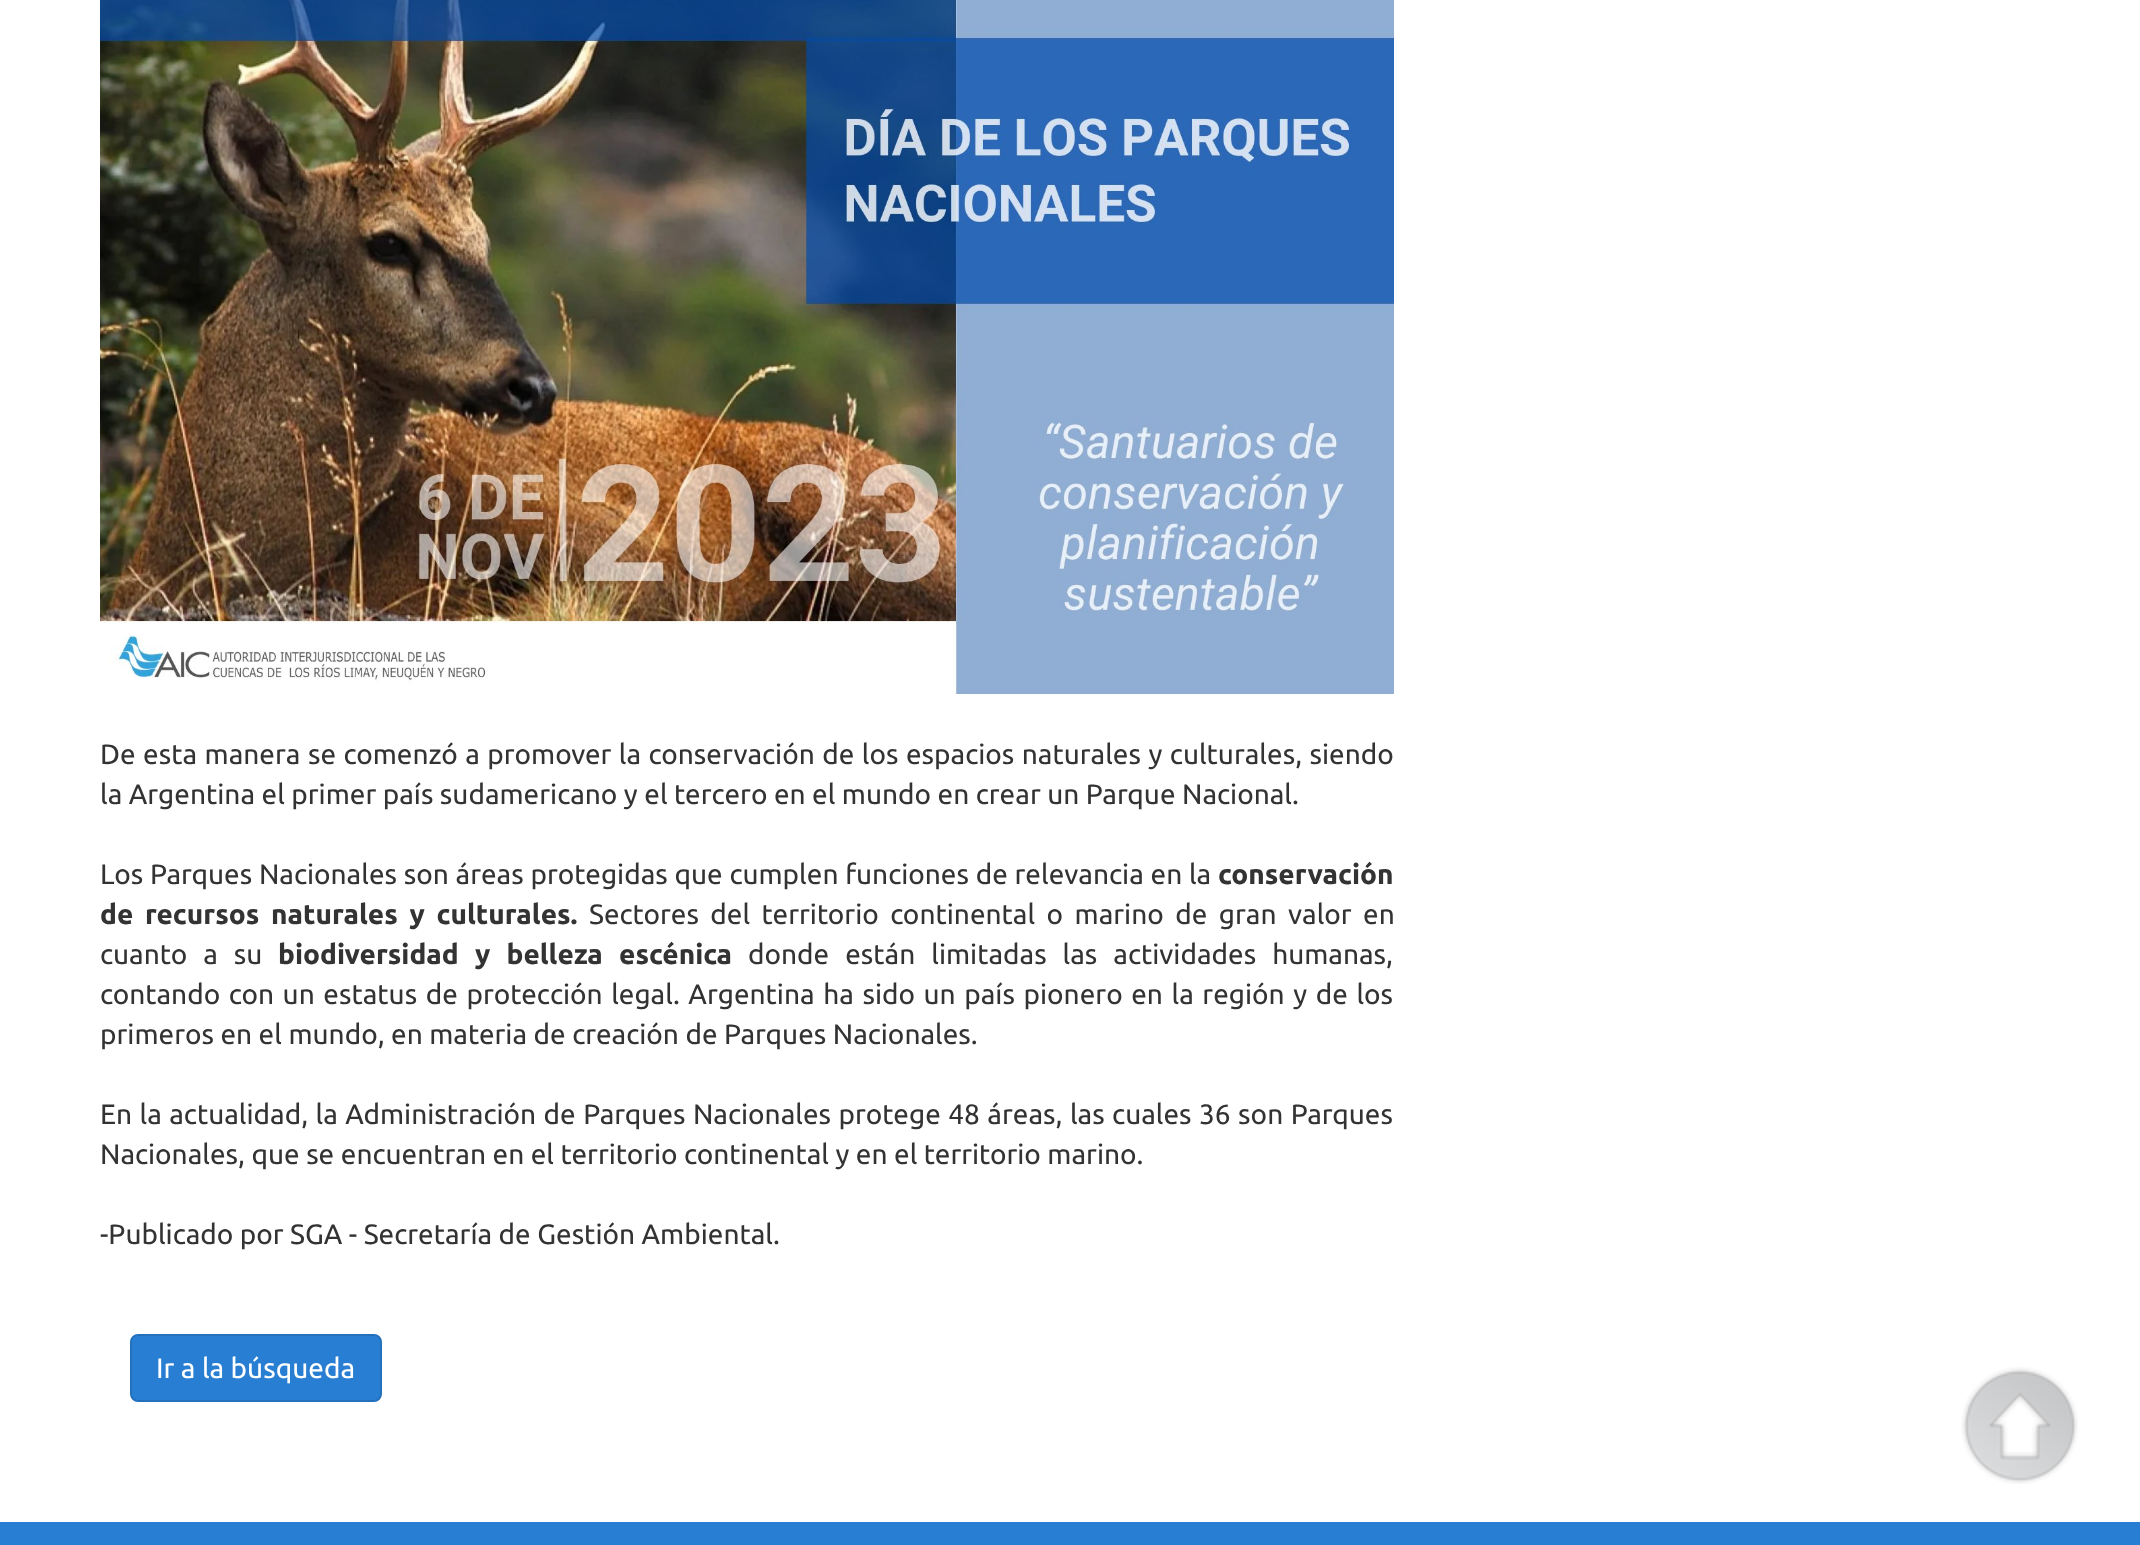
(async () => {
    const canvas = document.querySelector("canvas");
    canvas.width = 2140;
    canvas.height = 1545;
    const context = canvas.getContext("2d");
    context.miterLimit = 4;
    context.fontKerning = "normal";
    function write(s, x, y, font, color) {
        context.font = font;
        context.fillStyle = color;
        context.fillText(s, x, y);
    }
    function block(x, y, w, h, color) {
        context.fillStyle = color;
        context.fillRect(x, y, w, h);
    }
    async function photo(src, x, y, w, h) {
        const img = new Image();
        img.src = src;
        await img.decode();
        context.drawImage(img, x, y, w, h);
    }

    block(0, 0, 2140, 1545, "rgb(255, 255, 255)");
    await photo("media/1.png", 100, 0, 1294, 694);
    context.wordSpacing = "1px";
    write("De esta manera se comenzó a promover la conservación de los espacios naturales y culturales, siendo", 100, 764, "28px Ubuntu", "rgb(51, 51, 51)");
    context.wordSpacing = "0px";
    write("la Argentina el primer país sudamericano y el tercero en el mundo en crear un Parque Nacional.", 100, 804, "28px Ubuntu", "rgb(51, 51, 51)");
    context.wordSpacing = "0.25px";
    write("Los Parques Nacionales son áreas protegidas que cumplen funciones de relevancia en la", 100, 884, "28px Ubuntu", "rgb(51, 51, 51)");
    context.wordSpacing = "0px";
    write("conservación", 1218, 884, "bold 28px Ubuntu", "rgb(51, 51, 51)");
    context.wordSpacing = "5px";
    write("de recursos naturales y culturales.", 100, 924, "bold 28px Ubuntu", "rgb(51, 51, 51)");
    write("Sectores del territorio continental o marino de gran valor en", 589, 924, "28px Ubuntu", "rgb(51, 51, 51)");
    context.wordSpacing = "9.5px";
    write("cuanto a su", 100, 964, "28px Ubuntu", "rgb(51, 51, 51)");
    write("biodiversidad y belleza escénica", 278, 964, "bold 28px Ubuntu", "rgb(51, 51, 51)");
    write("donde están limitadas las actividades humanas,", 748, 964, "28px Ubuntu", "rgb(51, 51, 51)");
    context.wordSpacing = "2.1px";
    write("contando con un estatus de protección legal. Argentina ha sido un país pionero en la región y de los", 100, 1004, "28px Ubuntu", "rgb(51, 51, 51)");
    context.wordSpacing = "0px";
    write("primeros en el mundo, en materia de creación de Parques Nacionales.", 100, 1044, "28px Ubuntu", "rgb(51, 51, 51)");
    context.wordSpacing = "1px";
    write("En la actualidad, la Administración de Parques Nacionales protege 48 áreas, las cuales 36 son Parques", 100, 1124, "28px Ubuntu", "rgb(51, 51, 51)");
    context.wordSpacing = "0px";
    write("Nacionales, que se encuentran en el territorio continental y en el territorio marino.", 100, 1164, "28px Ubuntu", "rgb(51, 51, 51)");
    write("-Publicado por SGA - Secretaría de Gestión Ambiental.", 100, 1244, "28px Ubuntu", "rgb(51, 51, 51)");
    context.fillStyle = "rgb(40, 126, 210)";
    context.beginPath();
    context.roundRect(131, 1335, 250, 66, 7);
    context.fill();
    context.strokeStyle = "rgb(36, 113, 189)";
    context.lineWidth = 2;
    context.stroke();
    write("Ir a la búsqueda", 156, 1378, "28px Ubuntu", "rgb(255, 255, 255)");
    block(0, 1522, 2140, 23, "rgb(40, 126, 210)");
    await photo("media/2.png", 1961, 1367, 117, 117);
})();
